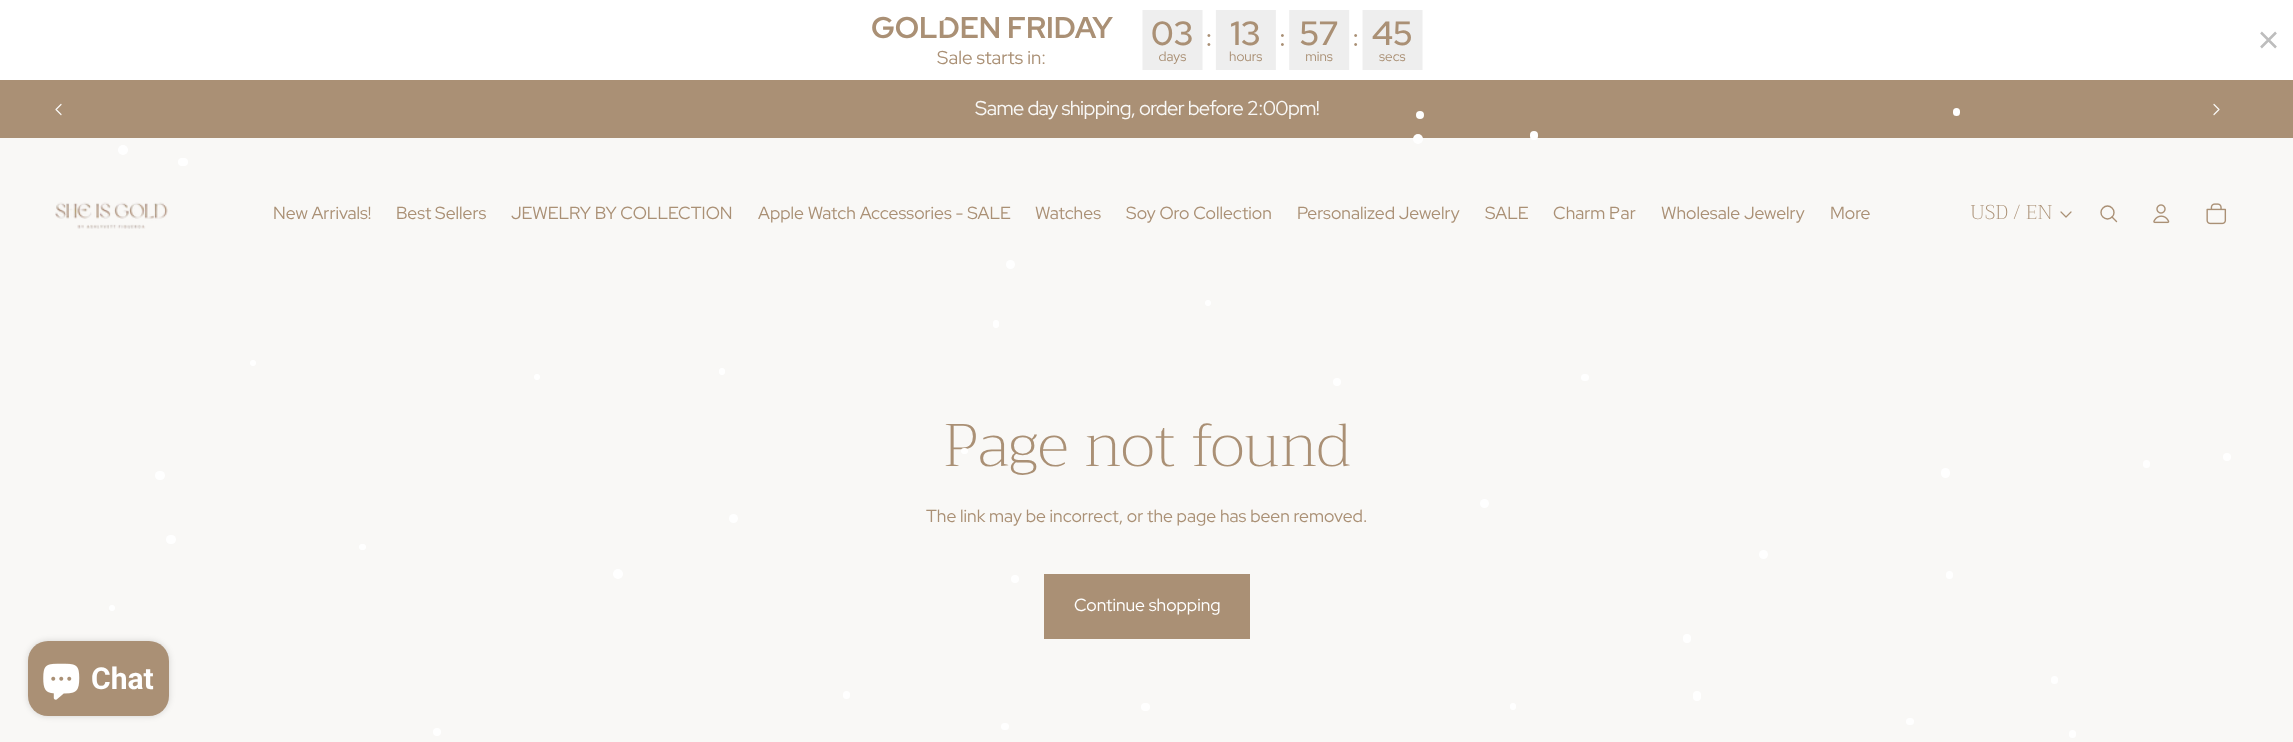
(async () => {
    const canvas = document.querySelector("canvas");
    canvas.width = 2293;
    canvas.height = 742;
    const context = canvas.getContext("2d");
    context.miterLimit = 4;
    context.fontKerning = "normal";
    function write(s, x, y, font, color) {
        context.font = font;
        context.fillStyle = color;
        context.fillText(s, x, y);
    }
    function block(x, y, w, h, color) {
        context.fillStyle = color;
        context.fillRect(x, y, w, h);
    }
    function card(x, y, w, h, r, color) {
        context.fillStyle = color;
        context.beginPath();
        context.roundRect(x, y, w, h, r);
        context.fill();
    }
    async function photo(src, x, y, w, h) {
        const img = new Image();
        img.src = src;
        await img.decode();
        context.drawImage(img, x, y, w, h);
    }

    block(0, 0, 2293, 742, "rgb(249, 248, 246)");
    block(0, 0, 2293, 80, "rgb(255, 255, 255)");
    write("GOLDEN FRIDAY", 871, 38, "bold 30px Red Hat Display", "rgb(170, 144, 117)");
    context.fillStyle = "rgb(255, 255, 255)";
    context.beginPath();
    context.arc(941, 16, 5, 0, Math.PI * 2);
    context.fill();
    write("Sale starts in:", 937, 64, "18.75px Red Hat Display", "rgb(170, 144, 117)");
    await photo("media/1.png", 1142, 10, 281, 60);
    context.beginPath();
    context.moveTo(2276, 32.5);
    context.lineTo(2261, 47.5);
    context.moveTo(2276, 47.5);
    context.lineTo(2261, 32.5);
    context.strokeStyle = "rgb(189, 189, 189)";
    context.lineWidth = 2.5;
    context.stroke();
    block(0, 80, 2293, 58, "rgb(170, 144, 117)");
    context.letterSpacing = "-0.6px";
    write("Same day shipping, order before 2:00pm!", 975, 115, "20px Red Hat Display", "rgb(249, 248, 246)");
    context.beginPath();
    context.moveTo(61, 104.5);
    context.lineTo(56, 109.5);
    context.lineTo(61, 114.5);
    context.strokeStyle = "rgb(249, 248, 246)";
    context.lineWidth = 1.2;
    context.lineCap = "round";
    context.lineJoin = "round";
    context.stroke();
    context.beginPath();
    context.moveTo(2214, 104.5);
    context.lineTo(2219, 109.5);
    context.lineTo(2214, 114.5);
    context.stroke();
    await photo("media/2.png", 55, 202, 113, 27);
    context.letterSpacing = "0px";
    write("New Arrivals!", 273, 219, "17.5px Red Hat Display", "rgb(170, 144, 117)");
    write("Best Sellers", 396, 219, "17.5px Red Hat Display", "rgb(170, 144, 117)");
    write("JEWELRY BY COLLECTION", 511, 219, "17.5px Red Hat Display", "rgb(170, 144, 117)");
    write("Apple Watch Accessories - SALE", 758, 219, "17.5px Red Hat Display", "rgb(170, 144, 117)");
    write("Watches", 1035, 219, "17.5px Red Hat Display", "rgb(170, 144, 117)");
    write("Soy Oro Collection", 1126, 219, "17.5px Red Hat Display", "rgb(170, 144, 117)");
    write("Personalized Jewelry", 1297, 219, "17.5px Red Hat Display", "rgb(170, 144, 117)");
    write("SALE", 1485, 219, "17.5px Red Hat Display", "rgb(170, 144, 117)");
    write("Charm Bar", 1553, 219, "17.5px Red Hat Display", "rgb(170, 144, 117)");
    write("Wholesale Jewelry", 1661, 219, "17.5px Red Hat Display", "rgb(170, 144, 117)");
    write("More", 1830, 219, "17.5px Red Hat Display", "rgb(170, 144, 117)");
    write("USD / EN", 1970, 219, "300 20px Trirong", "rgb(170, 144, 117)");
    context.beginPath();
    context.moveTo(2071, 212);
    context.lineTo(2066, 217);
    context.lineTo(2061, 212);
    context.strokeStyle = "rgb(170, 144, 117)";
    context.stroke();
    context.beginPath();
    context.arc(2107.5, 212.5, 6.5, 0, Math.PI * 2);
    context.lineWidth = 1.4;
    context.stroke();
    context.beginPath();
    context.moveTo(2112, 217);
    context.lineTo(2116.5, 221.5);
    context.stroke();
    await photo("media/3.png", 2153, 204, 17, 20);
    await photo("media/4.png", 2206, 203, 21, 22);
    context.fillStyle = "rgb(255, 255, 255)";
    context.beginPath();
    context.arc(1420, 115, 4, 0, Math.PI * 2);
    context.fill();
    card(1953, 108, 7, 8, 3.5, "rgb(255, 255, 255)");
    context.beginPath();
    context.arc(1418, 139, 5, 0, Math.PI * 2);
    context.fill();
    card(1530, 131, 8, 9, 4, "rgb(255, 255, 255)");
    context.beginPath();
    context.arc(123, 150, 5, 0, Math.PI * 2);
    context.fill();
    card(178, 158, 10, 8, 4, "rgb(255, 255, 255)");
    context.beginPath();
    context.arc(1617.5, 216.5, 3.5, 0, Math.PI * 2);
    context.fill();
    context.beginPath();
    context.arc(1010.5, 264.5, 4.5, 0, Math.PI * 2);
    context.fill();
    context.beginPath();
    context.arc(1208, 303, 3, 0, Math.PI * 2);
    context.fill();
    card(993, 320, 6, 8, 3, "rgb(255, 255, 255)");
    context.beginPath();
    context.arc(253, 363, 3, 0, Math.PI * 2);
    context.fill();
    card(719, 368, 6, 7, 3, "rgb(255, 255, 255)");
    context.beginPath();
    context.arc(537, 377, 3, 0, Math.PI * 2);
    context.fill();
    context.beginPath();
    context.arc(1337, 382, 4, 0, Math.PI * 2);
    context.fill();
    card(1581, 374, 8, 7, 3.5, "rgb(255, 255, 255)");
    write("Page not found", 943, 466, "300 60px Trirong", "rgb(170, 144, 117)");
    write("The link may be incorrect, or the page has been removed.", 926, 522, "17.5px Red Hat Display", "rgb(170, 144, 117)");
    block(1044, 574, 206, 65, "rgb(170, 144, 117)");
    write("Continue shopping", 1074, 611, "17.5px Red Hat Display", "rgb(255, 255, 255)");
    card(961, 448, 7, 6, 3, "rgb(255, 255, 255)");
    context.beginPath();
    context.arc(2227, 457, 4, 0, Math.PI * 2);
    context.fill();
    card(2143, 460, 7, 8, 3.5, "rgb(255, 255, 255)");
    card(155, 471, 10, 9, 4.5, "rgb(255, 255, 255)");
    card(1941, 468, 9, 10, 4.5, "rgb(255, 255, 255)");
    context.beginPath();
    context.arc(1484.5, 503.5, 4.5, 0, Math.PI * 2);
    context.fill();
    context.beginPath();
    context.arc(733.5, 518.5, 4.5, 0, Math.PI * 2);
    context.fill();
    card(166, 535, 10, 9, 4.5, "rgb(255, 255, 255)");
    card(359, 544, 7, 6, 3, "rgb(255, 255, 255)");
    context.beginPath();
    context.arc(1763.5, 554.5, 4.5, 0, Math.PI * 2);
    context.fill();
    context.beginPath();
    context.arc(618, 574, 5, 0, Math.PI * 2);
    context.fill();
    context.beginPath();
    context.arc(1015, 579, 4, 0, Math.PI * 2);
    context.fill();
    card(1946, 571, 7, 8, 3.5, "rgb(255, 255, 255)");
    context.beginPath();
    context.arc(112, 608, 3, 0, Math.PI * 2);
    context.fill();
    card(1683, 634, 8, 9, 4, "rgb(255, 255, 255)");
    context.fillStyle = "rgba(0, 0, 0, 0.15)";
    context.filter = "blur(3px)";
    context.beginPath();
    context.roundRect(28, 641, 141, 75, 20);
    context.fill();
    context.filter = "none";
    card(28, 641, 141, 75, 20, "rgb(170, 144, 117)");
    await photo("media/5.png", 43, 663, 37, 37);
    write("Chat", 91, 689, "bold 30px Roboto", "rgb(255, 255, 255)");
    card(2051, 676, 7, 8, 3.5, "rgb(255, 255, 255)");
    card(843, 691, 7, 8, 3.5, "rgb(255, 255, 255)");
    card(1693, 691, 8, 10, 4, "rgb(255, 255, 255)");
    card(1141, 703, 9, 8, 4, "rgb(255, 255, 255)");
    card(1510, 703, 6, 7, 3, "rgb(255, 255, 255)");
    card(1906, 718, 8, 7, 3.5, "rgb(255, 255, 255)");
    card(1001, 723, 8, 7, 3.5, "rgb(255, 255, 255)");
    context.beginPath();
    context.arc(437, 732, 4, 0, Math.PI * 2);
    context.fill();
    card(2069, 730, 7, 8, 3.5, "rgb(255, 255, 255)");
})();
